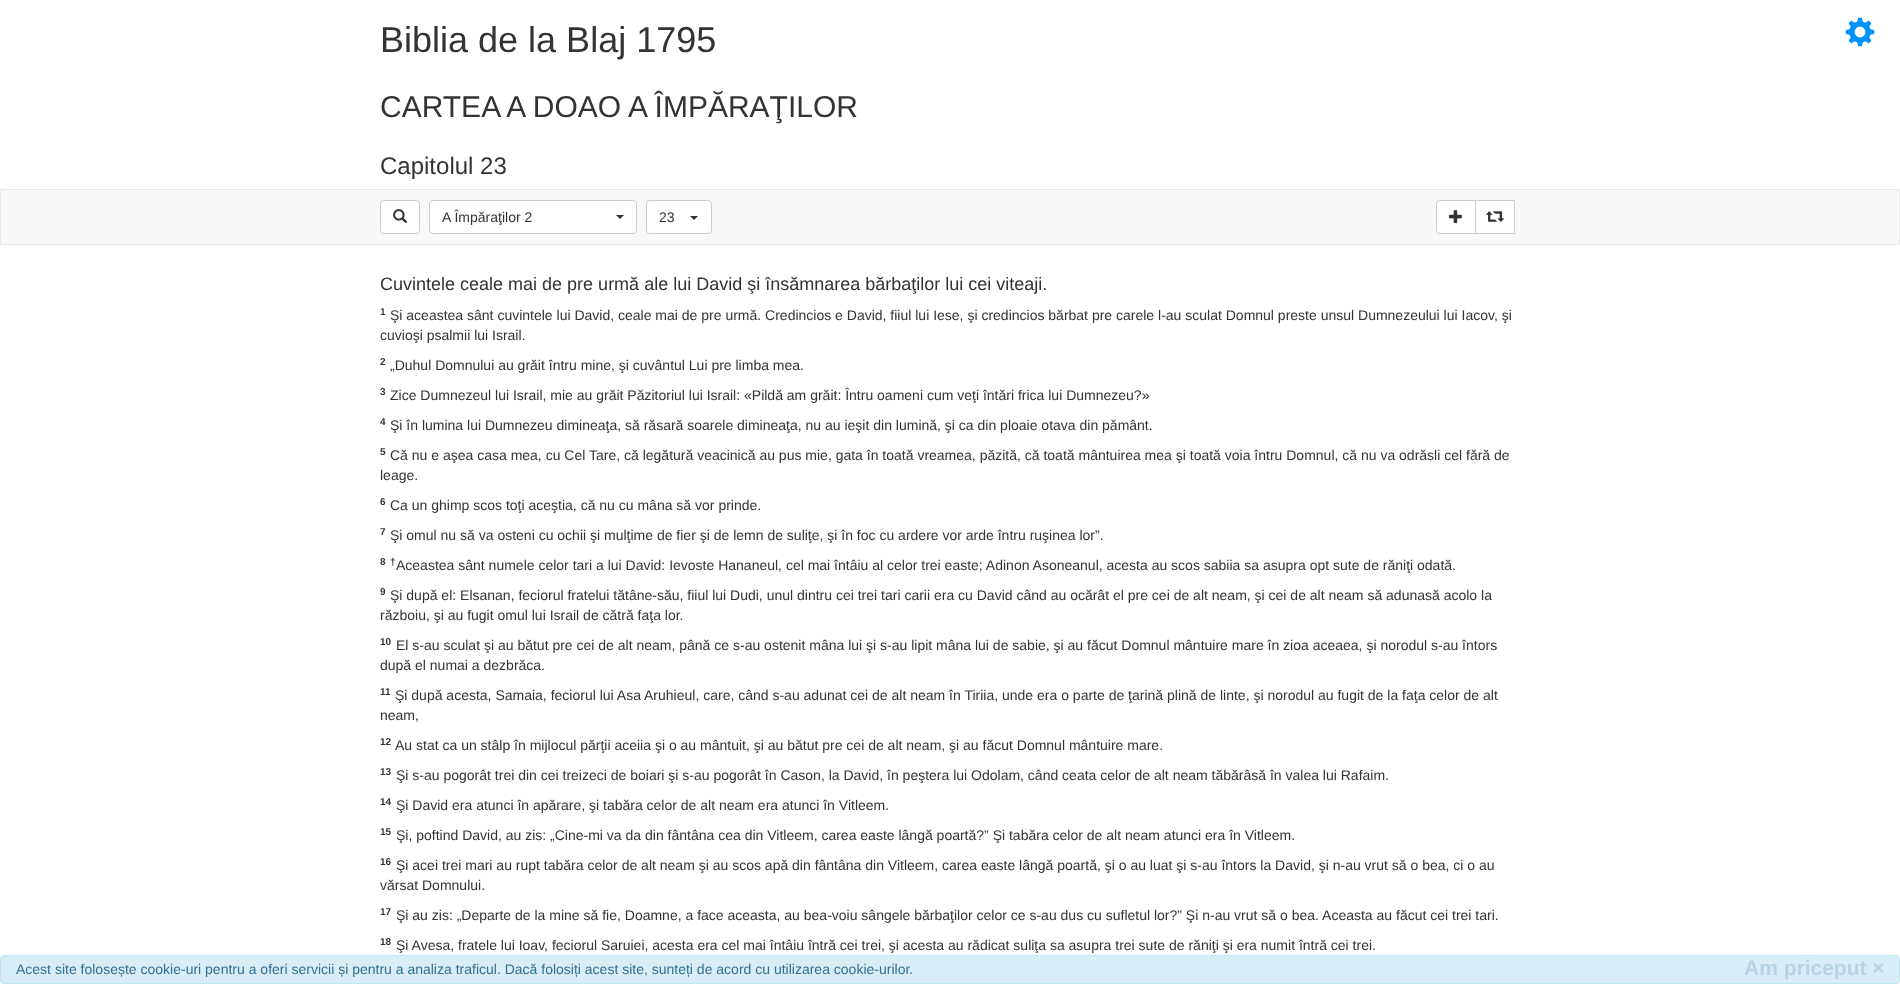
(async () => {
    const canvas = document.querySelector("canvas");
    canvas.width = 1900;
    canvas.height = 984;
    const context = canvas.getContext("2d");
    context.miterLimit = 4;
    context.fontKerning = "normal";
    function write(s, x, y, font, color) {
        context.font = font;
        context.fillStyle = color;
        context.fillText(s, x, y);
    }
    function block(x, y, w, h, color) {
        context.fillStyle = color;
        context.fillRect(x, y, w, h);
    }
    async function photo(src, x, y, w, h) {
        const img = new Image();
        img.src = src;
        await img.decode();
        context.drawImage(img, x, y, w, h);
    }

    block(0, 0, 1900, 984, "rgb(255, 255, 255)");
    write("Biblia de la Blaj 1795", 380, 52, "36px Liberation Sans", "rgb(51, 51, 51)");
    write("CARTEA A DOAO A ÎMPĂRAŢILOR", 380, 117, "30px Liberation Sans", "rgb(51, 51, 51)");
    write("Capitolul 23", 380, 174, "24px Liberation Sans", "rgb(51, 51, 51)");
    await photo("media/1.png", 1845, 17, 30, 30);
    context.fillStyle = "rgb(248, 248, 248)";
    context.beginPath();
    context.rect(0.5, 189.5, 1899, 55);
    context.fill();
    context.strokeStyle = "rgb(231, 231, 231)";
    context.stroke();
    context.fillStyle = "rgb(255, 255, 255)";
    context.beginPath();
    context.roundRect(380.5, 200.5, 39, 33, 3.5);
    context.fill();
    context.strokeStyle = "rgb(204, 204, 204)";
    context.stroke();
    await photo("media/2.png", 393, 209, 15, 14);
    context.beginPath();
    context.roundRect(429.5, 200.5, 207, 33, 3.5);
    context.fill();
    context.stroke();
    write("A Împăraţilor 2", 442, 222, "14px Liberation Sans", "rgb(51, 51, 51)");
    context.beginPath();
    context.moveTo(616, 215);
    context.lineTo(624, 215);
    context.lineTo(620, 219);
    context.closePath();
    context.fill();
    context.fillStyle = "rgb(255, 255, 255)";
    context.beginPath();
    context.roundRect(646.5, 200.5, 65, 33, 3.5);
    context.fill();
    context.stroke();
    write("23", 659, 222, "14px Liberation Sans", "rgb(51, 51, 51)");
    context.beginPath();
    context.moveTo(690, 216);
    context.lineTo(698, 216);
    context.lineTo(694, 220);
    context.closePath();
    context.fill();
    context.fillStyle = "rgb(255, 255, 255)";
    context.beginPath();
    context.roundRect(1436.5, 200.5, 39, 33, [3.5, 0, 0, 3.5]);
    context.fill();
    context.stroke();
    await photo("media/3.png", 1449, 210, 13, 13);
    context.beginPath();
    context.rect(1475.5, 200.5, 39, 33);
    context.fill();
    context.stroke();
    await photo("media/4.png", 1486, 211, 18, 11);
    write("Cuvintele ceale mai de pre urmă ale lui David şi însămnarea bărbaţilor lui cei viteaji.", 380, 290, "18px Liberation Sans", "rgb(51, 51, 51)");
    write("1", 380, 315, "bold 10px Liberation Sans", "rgb(51, 51, 51)");
    write("Şi aceastea sânt cuvintele lui David, ceale mai de pre urmă. Credincios e David, fiiul lui Iese, şi credincios bărbat pre carele l-au sculat Domnul preste unsul Dumnezeului lui Iacov, şi", 390, 320, "14px Liberation Sans", "rgb(51, 51, 51)");
    write("cuvioşi psalmii lui Israil.", 380, 340, "14px Liberation Sans", "rgb(51, 51, 51)");
    write("2", 380, 365, "bold 10px Liberation Sans", "rgb(51, 51, 51)");
    write("„Duhul Domnului au grăit întru mine, şi cuvântul Lui pre limba mea.", 390, 370, "14px Liberation Sans", "rgb(51, 51, 51)");
    write("3", 380, 395, "bold 10px Liberation Sans", "rgb(51, 51, 51)");
    write("Zice Dumnezeul lui Israil, mie au grăit Păzitoriul lui Israil: «Pildă am grăit: Întru oameni cum veţi întări frica lui Dumnezeu?»", 390, 400, "14px Liberation Sans", "rgb(51, 51, 51)");
    write("4", 380, 425, "bold 10px Liberation Sans", "rgb(51, 51, 51)");
    write("Şi în lumina lui Dumnezeu dimineaţa, să răsară soarele dimineaţa, nu au ieşit din lumină, şi ca din ploaie otava din pământ.", 390, 430, "14px Liberation Sans", "rgb(51, 51, 51)");
    write("5", 380, 455, "bold 10px Liberation Sans", "rgb(51, 51, 51)");
    write("Că nu e aşea casa mea, cu Cel Tare, că legătură veacinică au pus mie, gata în toată vreamea, păzită, că toată mântuirea mea şi toată voia întru Domnul, că nu va odrăsli cel fără de", 390, 460, "14px Liberation Sans", "rgb(51, 51, 51)");
    write("leage.", 380, 480, "14px Liberation Sans", "rgb(51, 51, 51)");
    write("6", 380, 505, "bold 10px Liberation Sans", "rgb(51, 51, 51)");
    write("Ca un ghimp scos toţi aceştia, că nu cu mâna să vor prinde.", 390, 510, "14px Liberation Sans", "rgb(51, 51, 51)");
    write("7", 380, 535, "bold 10px Liberation Sans", "rgb(51, 51, 51)");
    write("Şi omul nu să va osteni cu ochii şi mulţime de fier şi de lemn de suliţe, şi în foc cu ardere vor arde întru ruşinea lor”.", 390, 540, "14px Liberation Sans", "rgb(51, 51, 51)");
    write("8", 380, 565, "bold 10px Liberation Sans", "rgb(51, 51, 51)");
    write("†", 390, 565, "bold 10px Liberation Sans", "rgb(51, 51, 51)");
    write("Aceastea sânt numele celor tari a lui David: Ievoste Hananeul, cel mai întâiu al celor trei easte; Adinon Asoneanul, acesta au scos sabiia sa asupra opt sute de răniţi odată.", 396, 570, "14px Liberation Sans", "rgb(51, 51, 51)");
    write("9", 380, 595, "bold 10px Liberation Sans", "rgb(51, 51, 51)");
    write("Şi după el: Elsanan, feciorul fratelui tătâne-său, fiiul lui Dudi, unul dintru cei trei tari carii era cu David când au ocărât el pre cei de alt neam, şi cei de alt neam să adunasă acolo la", 390, 600, "14px Liberation Sans", "rgb(51, 51, 51)");
    write("războiu, şi au fugit omul lui Israil de cătră faţa lor.", 380, 620, "14px Liberation Sans", "rgb(51, 51, 51)");
    write("10", 380, 645, "bold 10px Liberation Sans", "rgb(51, 51, 51)");
    write("El s-au sculat şi au bătut pre cei de alt neam, până ce s-au ostenit mâna lui şi s-au lipit mâna lui de sabie, şi au făcut Domnul mântuire mare în zioa aceaea, şi norodul s-au întors", 396, 650, "14px Liberation Sans", "rgb(51, 51, 51)");
    write("după el numai a dezbrăca.", 380, 670, "14px Liberation Sans", "rgb(51, 51, 51)");
    write("11", 380, 695, "bold 10px Liberation Sans", "rgb(51, 51, 51)");
    write("Şi după acesta, Samaia, feciorul lui Asa Aruhieul, care, când s-au adunat cei de alt neam în Tiriia, unde era o parte de ţarină plină de linte, şi norodul au fugit de la faţa celor de alt", 395, 700, "14px Liberation Sans", "rgb(51, 51, 51)");
    write("neam,", 380, 720, "14px Liberation Sans", "rgb(51, 51, 51)");
    write("12", 380, 745, "bold 10px Liberation Sans", "rgb(51, 51, 51)");
    write("Au stat ca un stâlp în mijlocul părţii aceiia şi o au mântuit, şi au bătut pre cei de alt neam, şi au făcut Domnul mântuire mare.", 395, 750, "14px Liberation Sans", "rgb(51, 51, 51)");
    write("13", 380, 775, "bold 10px Liberation Sans", "rgb(51, 51, 51)");
    write("Şi s-au pogorât trei din cei treizeci de boiari şi s-au pogorât în Cason, la David, în peştera lui Odolam, când ceata celor de alt neam tăbărâsă în valea lui Rafaim.", 396, 780, "14px Liberation Sans", "rgb(51, 51, 51)");
    write("14", 380, 805, "bold 10px Liberation Sans", "rgb(51, 51, 51)");
    write("Şi David era atunci în apărare, şi tabăra celor de alt neam era atunci în Vitleem.", 396, 810, "14px Liberation Sans", "rgb(51, 51, 51)");
    write("15", 380, 835, "bold 10px Liberation Sans", "rgb(51, 51, 51)");
    write("Şi, poftind David, au zis: „Cine-mi va da din fântâna cea din Vitleem, carea easte lângă poartă?” Şi tabăra celor de alt neam atunci era în Vitleem.", 396, 840, "14px Liberation Sans", "rgb(51, 51, 51)");
    write("16", 380, 865, "bold 10px Liberation Sans", "rgb(51, 51, 51)");
    write("Şi acei trei mari au rupt tabăra celor de alt neam şi au scos apă din fântâna din Vitleem, carea easte lângă poartă, şi o au luat şi s-au întors la David, şi n-au vrut să o bea, ci o au", 396, 870, "14px Liberation Sans", "rgb(51, 51, 51)");
    write("vărsat Domnului.", 380, 890, "14px Liberation Sans", "rgb(51, 51, 51)");
    write("17", 380, 915, "bold 10px Liberation Sans", "rgb(51, 51, 51)");
    write("Şi au zis: „Departe de la mine să fie, Doamne, a face aceasta, au bea-voiu sângele bărbaţilor celor ce s-au dus cu sufletul lor?” Şi n-au vrut să o bea. Aceasta au făcut cei trei tari.", 396, 920, "14px Liberation Sans", "rgb(51, 51, 51)");
    write("18", 380, 945, "bold 10px Liberation Sans", "rgb(51, 51, 51)");
    write("Şi Avesa, fratele lui Ioav, feciorul Saruiei, acesta era cel mai întâiu întră cei trei, şi acesta au rădicat suliţa sa asupra trei sute de răniţi şi era numit întră cei trei.", 396, 950, "14px Liberation Sans", "rgb(51, 51, 51)");
    context.fillStyle = "rgb(217, 237, 247)";
    context.beginPath();
    context.roundRect(0.5, 955.5, 1899, 28, 3.5);
    context.fill();
    context.strokeStyle = "rgb(188, 232, 241)";
    context.stroke();
    write("Acest site folosește cookie-uri pentru a oferi servicii și pentru a analiza traficul. Dacă folosiți acest site, sunteți de acord cu utilizarea cookie-urilor.", 16, 974, "14px Liberation Sans", "rgb(49, 112, 143)");
    write("Am priceput ×", 1744, 975, "bold 21px Liberation Sans", "rgb(183, 212, 226)");
})();
